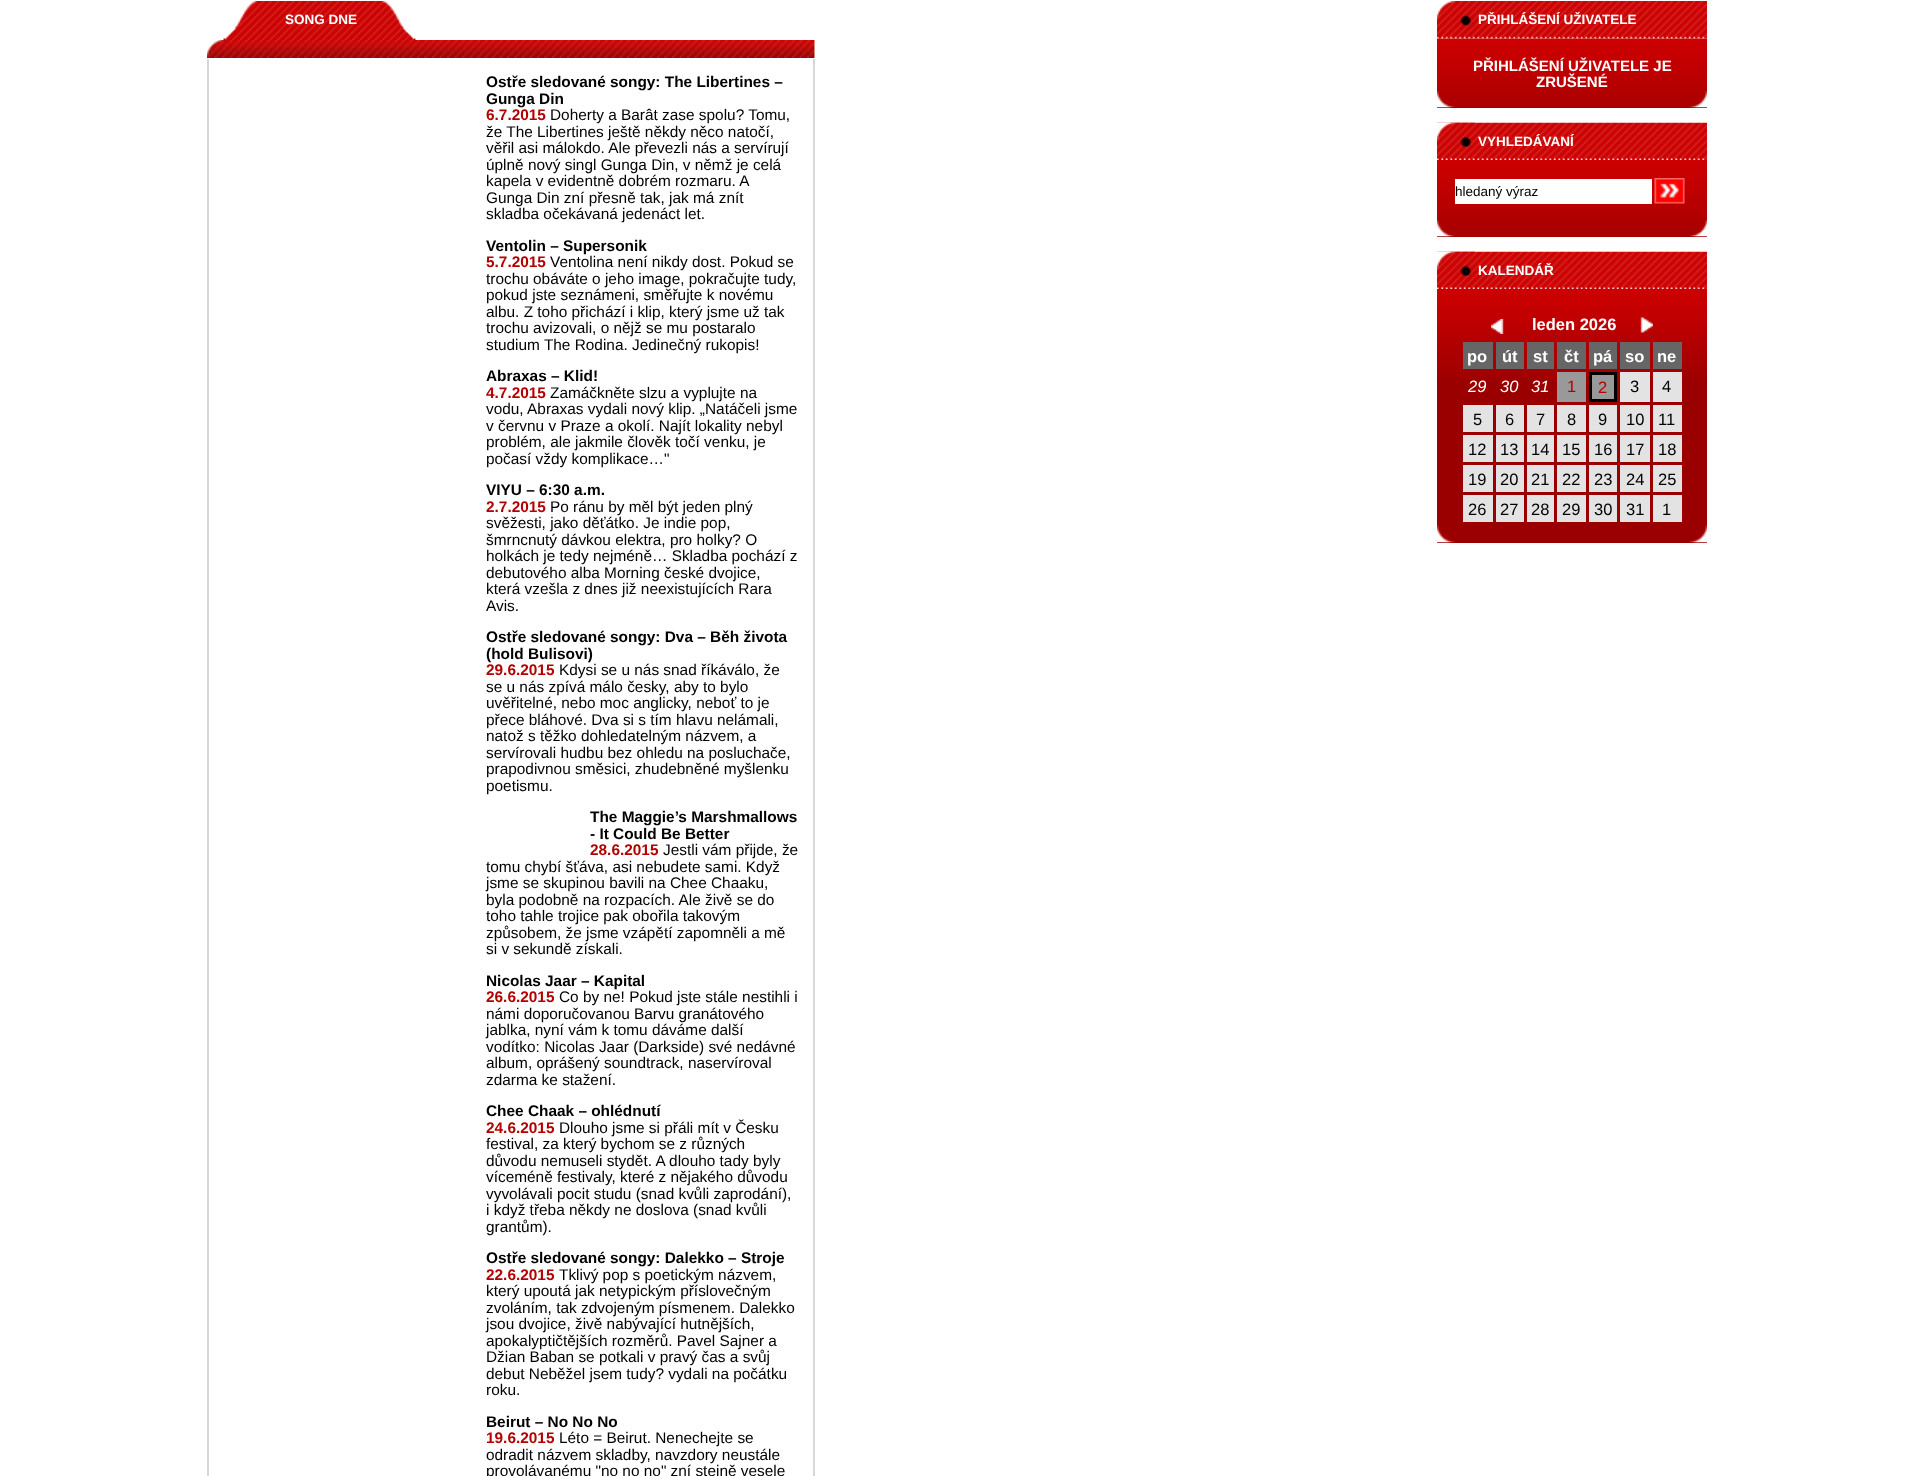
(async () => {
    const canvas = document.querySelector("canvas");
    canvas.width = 1913;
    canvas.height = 1476;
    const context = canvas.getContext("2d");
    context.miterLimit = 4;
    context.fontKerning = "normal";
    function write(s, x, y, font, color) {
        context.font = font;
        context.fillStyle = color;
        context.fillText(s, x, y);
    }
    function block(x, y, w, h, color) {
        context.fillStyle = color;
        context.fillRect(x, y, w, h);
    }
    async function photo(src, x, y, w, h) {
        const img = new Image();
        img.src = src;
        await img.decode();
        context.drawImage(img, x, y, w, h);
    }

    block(0, 0, 1913, 1476, "rgb(255, 255, 255)");
    await photo("media/1.png", 223, 1, 193, 39);
    write("SONG DNE", 285, 24, "bold 13.5px Liberation Sans", "rgb(255, 255, 255)");
    await photo("media/2.png", 208, 40, 607, 18);
    await photo("media/3.png", 207, 40, 18, 18);
    block(813, 59, 2, 1417, "rgb(215, 215, 215)");
    block(207, 59, 2, 1417, "rgb(215, 215, 215)");
    write("Ostře sledované songy: The Libertines –", 486, 87, "bold 15.4px Liberation Sans", "rgb(0, 0, 0)");
    write("Gunga Din", 486, 104, "bold 15.4px Liberation Sans", "rgb(0, 0, 0)");
    write("6.7.2015", 486, 120, "bold 15.4px Liberation Sans", "rgb(179, 0, 0)");
    write("Doherty a Barât zase spolu? Tomu,", 550, 120, "15.4px Liberation Sans", "rgb(0, 0, 0)");
    write("že The Libertines ještě někdy něco natočí,", 486, 137, "15.4px Liberation Sans", "rgb(0, 0, 0)");
    write("věřil asi málokdo. Ale převezli nás a servírují", 486, 153, "15.4px Liberation Sans", "rgb(0, 0, 0)");
    write("úplně nový singl Gunga Din, v němž je celá", 486, 170, "15.4px Liberation Sans", "rgb(0, 0, 0)");
    write("kapela v evidentně dobrém rozmaru. A", 486, 186, "15.4px Liberation Sans", "rgb(0, 0, 0)");
    write("Gunga Din zní přesně tak, jak má znít", 486, 203, "15.4px Liberation Sans", "rgb(0, 0, 0)");
    write("skladba očekávaná jedenáct let.", 486, 219, "15.4px Liberation Sans", "rgb(0, 0, 0)");
    write("Ventolin – Supersonik", 486, 251, "bold 15.4px Liberation Sans", "rgb(0, 0, 0)");
    write("5.7.2015", 486, 267, "bold 15.4px Liberation Sans", "rgb(179, 0, 0)");
    write("Ventolina není nikdy dost. Pokud se", 550, 267, "15.4px Liberation Sans", "rgb(0, 0, 0)");
    write("trochu obáváte o jeho image, pokračujte tudy,", 486, 284, "15.4px Liberation Sans", "rgb(0, 0, 0)");
    write("pokud jste seznámeni, směřujte k novému", 486, 300, "15.4px Liberation Sans", "rgb(0, 0, 0)");
    write("albu. Z toho přichází i klip, který jsme už tak", 486, 317, "15.4px Liberation Sans", "rgb(0, 0, 0)");
    write("trochu avizovali, o nějž se mu postaralo", 486, 333, "15.4px Liberation Sans", "rgb(0, 0, 0)");
    write("studium The Rodina. Jedinečný rukopis!", 486, 350, "15.4px Liberation Sans", "rgb(0, 0, 0)");
    write("Abraxas – Klid!", 486, 381, "bold 15.4px Liberation Sans", "rgb(0, 0, 0)");
    write("4.7.2015", 486, 398, "bold 15.4px Liberation Sans", "rgb(179, 0, 0)");
    write("Zamáčkněte slzu a vyplujte na", 550, 398, "15.4px Liberation Sans", "rgb(0, 0, 0)");
    write("vodu, Abraxas vydali nový klip. „Natáčeli jsme", 486, 414, "15.4px Liberation Sans", "rgb(0, 0, 0)");
    write("v červnu v Praze a okolí. Najít lokality nebyl", 486, 431, "15.4px Liberation Sans", "rgb(0, 0, 0)");
    write("problém, ale jakmile člověk točí venku, je", 486, 447, "15.4px Liberation Sans", "rgb(0, 0, 0)");
    write("počasí vždy komplikace…\"", 486, 464, "15.4px Liberation Sans", "rgb(0, 0, 0)");
    write("VIYU – 6:30 a.m.", 486, 495, "bold 15.4px Liberation Sans", "rgb(0, 0, 0)");
    write("2.7.2015", 486, 512, "bold 15.4px Liberation Sans", "rgb(179, 0, 0)");
    write("Po ránu by měl být jeden plný", 550, 512, "15.4px Liberation Sans", "rgb(0, 0, 0)");
    write("svěžesti, jako děťátko. Je indie pop,", 486, 528, "15.4px Liberation Sans", "rgb(0, 0, 0)");
    write("šmrncnutý dávkou elektra, pro holky? O", 486, 545, "15.4px Liberation Sans", "rgb(0, 0, 0)");
    write("holkách je tedy nejméně… Skladba pochází z", 486, 561, "15.4px Liberation Sans", "rgb(0, 0, 0)");
    write("debutového alba Morning české dvojice,", 486, 578, "15.4px Liberation Sans", "rgb(0, 0, 0)");
    write("která vzešla z dnes již neexistujících Rara", 486, 594, "15.4px Liberation Sans", "rgb(0, 0, 0)");
    write("Avis.", 486, 611, "15.4px Liberation Sans", "rgb(0, 0, 0)");
    write("Ostře sledované songy: Dva – Běh života", 486, 642, "bold 15.4px Liberation Sans", "rgb(0, 0, 0)");
    write("(hold Bulisovi)", 486, 659, "bold 15.4px Liberation Sans", "rgb(0, 0, 0)");
    write("29.6.2015", 486, 675, "bold 15.4px Liberation Sans", "rgb(179, 0, 0)");
    write("Kdysi se u nás snad říkáválo, že", 559, 675, "15.4px Liberation Sans", "rgb(0, 0, 0)");
    write("se u nás zpívá málo česky, aby to bylo", 486, 692, "15.4px Liberation Sans", "rgb(0, 0, 0)");
    write("uvěřitelné, nebo moc anglicky, neboť to je", 486, 708, "15.4px Liberation Sans", "rgb(0, 0, 0)");
    write("přece bláhové. Dva si s tím hlavu nelámali,", 486, 725, "15.4px Liberation Sans", "rgb(0, 0, 0)");
    write("natož s těžko dohledatelným názvem, a", 486, 741, "15.4px Liberation Sans", "rgb(0, 0, 0)");
    write("servírovali hudbu bez ohledu na posluchače,", 486, 758, "15.4px Liberation Sans", "rgb(0, 0, 0)");
    write("prapodivnou směsici, zhudebněné myšlenku", 486, 774, "15.4px Liberation Sans", "rgb(0, 0, 0)");
    write("poetismu.", 486, 791, "15.4px Liberation Sans", "rgb(0, 0, 0)");
    write("The Maggie’s Marshmallows", 590, 822, "bold 15.4px Liberation Sans", "rgb(0, 0, 0)");
    write("- It Could Be Better", 590, 839, "bold 15.4px Liberation Sans", "rgb(0, 0, 0)");
    write("28.6.2015", 590, 855, "bold 15.4px Liberation Sans", "rgb(179, 0, 0)");
    write("Jestli vám přijde, že", 663, 855, "15.4px Liberation Sans", "rgb(0, 0, 0)");
    write("tomu chybí šťáva, asi nebudete sami. Když", 486, 872, "15.4px Liberation Sans", "rgb(0, 0, 0)");
    write("jsme se skupinou bavili na Chee Chaaku,", 486, 888, "15.4px Liberation Sans", "rgb(0, 0, 0)");
    write("byla podobně na rozpacích. Ale živě se do", 486, 905, "15.4px Liberation Sans", "rgb(0, 0, 0)");
    write("toho tahle trojice pak obořila takovým", 486, 921, "15.4px Liberation Sans", "rgb(0, 0, 0)");
    write("způsobem, že jsme vzápětí zapomněli a mě", 486, 938, "15.4px Liberation Sans", "rgb(0, 0, 0)");
    write("si v sekundě získali.", 486, 954, "15.4px Liberation Sans", "rgb(0, 0, 0)");
    write("Nicolas Jaar – Kapital", 486, 986, "bold 15.4px Liberation Sans", "rgb(0, 0, 0)");
    write("26.6.2015", 486, 1002, "bold 15.4px Liberation Sans", "rgb(179, 0, 0)");
    write("Co by ne! Pokud jste stále nestihli i", 559, 1002, "15.4px Liberation Sans", "rgb(0, 0, 0)");
    write("námi doporučovanou Barvu granátového", 486, 1019, "15.4px Liberation Sans", "rgb(0, 0, 0)");
    write("jablka, nyní vám k tomu dáváme další", 486, 1035, "15.4px Liberation Sans", "rgb(0, 0, 0)");
    write("vodítko: Nicolas Jaar (Darkside) své nedávné", 486, 1052, "15.4px Liberation Sans", "rgb(0, 0, 0)");
    write("album, oprášený soundtrack, naservíroval", 486, 1068, "15.4px Liberation Sans", "rgb(0, 0, 0)");
    write("zdarma ke stažení.", 486, 1085, "15.4px Liberation Sans", "rgb(0, 0, 0)");
    write("Chee Chaak – ohlédnutí", 486, 1116, "bold 15.4px Liberation Sans", "rgb(0, 0, 0)");
    write("24.6.2015", 486, 1133, "bold 15.4px Liberation Sans", "rgb(179, 0, 0)");
    write("Dlouho jsme si přáli mít v Česku", 559, 1133, "15.4px Liberation Sans", "rgb(0, 0, 0)");
    write("festival, za který bychom se z různých", 486, 1149, "15.4px Liberation Sans", "rgb(0, 0, 0)");
    write("důvodu nemuseli stydět. A dlouho tady byly", 486, 1166, "15.4px Liberation Sans", "rgb(0, 0, 0)");
    write("víceméně festivaly, které z nějakého důvodu", 486, 1182, "15.4px Liberation Sans", "rgb(0, 0, 0)");
    write("vyvolávali pocit studu (snad kvůli zaprodání),", 486, 1199, "15.4px Liberation Sans", "rgb(0, 0, 0)");
    write("i když třeba někdy ne doslova (snad kvůli", 486, 1215, "15.4px Liberation Sans", "rgb(0, 0, 0)");
    write("grantům).", 486, 1232, "15.4px Liberation Sans", "rgb(0, 0, 0)");
    write("Ostře sledované songy: Dalekko – Stroje", 486, 1263, "bold 15.4px Liberation Sans", "rgb(0, 0, 0)");
    write("22.6.2015", 486, 1280, "bold 15.4px Liberation Sans", "rgb(179, 0, 0)");
    write("Tklivý pop s poetickým názvem,", 559, 1280, "15.4px Liberation Sans", "rgb(0, 0, 0)");
    write("který upoutá jak netypickým příslovečným", 486, 1296, "15.4px Liberation Sans", "rgb(0, 0, 0)");
    write("zvoláním, tak zdvojeným písmenem. Dalekko", 486, 1313, "15.4px Liberation Sans", "rgb(0, 0, 0)");
    write("jsou dvojice, živě nabývající hutnějších,", 486, 1329, "15.4px Liberation Sans", "rgb(0, 0, 0)");
    write("apokalyptičtějších rozměrů. Pavel Sajner a", 486, 1346, "15.4px Liberation Sans", "rgb(0, 0, 0)");
    write("Džian Baban se potkali v pravý čas a svůj", 486, 1362, "15.4px Liberation Sans", "rgb(0, 0, 0)");
    write("debut Neběžel jsem tudy? vydali na počátku", 486, 1379, "15.4px Liberation Sans", "rgb(0, 0, 0)");
    write("roku.", 486, 1395, "15.4px Liberation Sans", "rgb(0, 0, 0)");
    write("Beirut – No No No", 486, 1427, "bold 15.4px Liberation Sans", "rgb(0, 0, 0)");
    write("19.6.2015", 486, 1443, "bold 15.4px Liberation Sans", "rgb(179, 0, 0)");
    write("Léto = Beirut. Nenechejte se", 559, 1443, "15.4px Liberation Sans", "rgb(0, 0, 0)");
    write("odradit názvem skladby, navzdory neustále", 486, 1460, "15.4px Liberation Sans", "rgb(0, 0, 0)");
    write("provolávanému \"no no no\" zní stejně vesele", 486, 1476, "15.4px Liberation Sans", "rgb(0, 0, 0)");
    await photo("media/4.png", 1437, 1, 270, 38);
    await photo("media/5.png", 1437, 1, 38, 26);
    write("PŘIHLÁŠENÍ UŽIVATELE", 1478, 24, "bold 13.5px Liberation Sans", "rgb(255, 255, 255)");
    block(1437, 107, 270, 1, "rgb(154, 0, 0)");
    await photo("media/6.png", 1437, 38, 270, 70);
    await photo("media/7.png", 1437, 89, 18, 19);
    await photo("media/8.png", 1689, 89, 18, 19);
    write("PŘIHLÁŠENÍ UŽIVATELE JE", 1473, 71, "bold 15px Liberation Sans", "rgb(255, 255, 255)");
    write("ZRUŠENÉ", 1536, 87, "bold 15px Liberation Sans", "rgb(255, 255, 255)");
    await photo("media/9.png", 1437, 122, 270, 38);
    await photo("media/10.png", 1437, 122, 38, 26);
    write("VYHLEDÁVANÍ", 1478, 146, "bold 13.5px Liberation Sans", "rgb(255, 255, 255)");
    block(1437, 236, 270, 1, "rgb(154, 0, 0)");
    await photo("media/11.png", 1437, 160, 270, 76);
    await photo("media/12.png", 1437, 218, 18, 19);
    await photo("media/13.png", 1689, 218, 18, 19);
    block(1455, 179, 197, 25, "rgb(255, 255, 255)");
    write("hledaný výraz", 1455, 196, "13.5px Liberation Sans", "rgb(0, 0, 0)");
    await photo("media/14.png", 1654, 178, 31, 26);
    await photo("media/15.png", 1437, 251, 270, 38);
    await photo("media/10.png", 1437, 251, 38, 26);
    write("KALENDÁŘ", 1478, 275, "bold 13.5px Liberation Sans", "rgb(255, 255, 255)");
    block(1437, 380, 270, 163, "rgb(154, 0, 0)");
    await photo("media/16.png", 1437, 289, 270, 91);
    await photo("media/17.png", 1437, 524, 18, 19);
    await photo("media/18.png", 1689, 524, 18, 19);
    await photo("media/19.png", 1491, 319, 13, 15);
    write("leden 2026", 1532, 330, "bold 16.5px Liberation Sans", "rgb(255, 255, 255)");
    await photo("media/20.png", 1640, 317, 13, 16);
    block(1463, 342, 30, 27, "rgb(102, 102, 102)");
    write("po", 1467, 362, "bold 16.5px Liberation Sans", "rgb(255, 255, 255)");
    block(1496, 342, 28, 27, "rgb(102, 102, 102)");
    write("út", 1502, 362, "bold 16.5px Liberation Sans", "rgb(255, 255, 255)");
    block(1527, 342, 27, 27, "rgb(102, 102, 102)");
    write("st", 1533, 362, "bold 16.5px Liberation Sans", "rgb(255, 255, 255)");
    block(1557, 342, 29, 27, "rgb(102, 102, 102)");
    write("čt", 1564, 362, "bold 16.5px Liberation Sans", "rgb(255, 255, 255)");
    block(1589, 342, 28, 27, "rgb(102, 102, 102)");
    write("pá", 1593, 362, "bold 16.5px Liberation Sans", "rgb(255, 255, 255)");
    block(1620, 342, 30, 27, "rgb(102, 102, 102)");
    write("so", 1625, 362, "bold 16.5px Liberation Sans", "rgb(255, 255, 255)");
    block(1653, 342, 29, 27, "rgb(102, 102, 102)");
    write("ne", 1657, 362, "bold 16.5px Liberation Sans", "rgb(255, 255, 255)");
    write("29", 1468, 392, "italic 16.5px Liberation Sans", "rgb(255, 255, 255)");
    write("30", 1500, 392, "italic 16.5px Liberation Sans", "rgb(255, 255, 255)");
    write("31", 1531, 392, "italic 16.5px Liberation Sans", "rgb(255, 255, 255)");
    block(1557, 372, 29, 30, "rgb(153, 153, 153)");
    write("1", 1567, 392, "16.5px Liberation Sans", "rgb(179, 0, 0)");
    context.fillStyle = "rgb(153, 153, 153)";
    context.beginPath();
    context.rect(1590.5, 373.5, 25, 27);
    context.fill();
    context.strokeStyle = "rgb(0, 0, 0)";
    context.lineWidth = 3;
    context.stroke();
    write("2", 1598, 393, "16.5px Liberation Sans", "rgb(179, 0, 0)");
    block(1620, 372, 30, 30, "rgb(227, 227, 227)");
    write("3", 1630, 392, "16.5px Liberation Sans", "rgb(0, 0, 0)");
    block(1653, 372, 29, 30, "rgb(227, 227, 227)");
    write("4", 1662, 392, "16.5px Liberation Sans", "rgb(0, 0, 0)");
    block(1463, 405, 30, 27, "rgb(227, 227, 227)");
    write("5", 1473, 425, "16.5px Liberation Sans", "rgb(0, 0, 0)");
    block(1496, 405, 28, 27, "rgb(227, 227, 227)");
    write("6", 1505, 425, "16.5px Liberation Sans", "rgb(0, 0, 0)");
    block(1527, 405, 27, 27, "rgb(227, 227, 227)");
    write("7", 1536, 425, "16.5px Liberation Sans", "rgb(0, 0, 0)");
    block(1557, 405, 29, 27, "rgb(227, 227, 227)");
    write("8", 1567, 425, "16.5px Liberation Sans", "rgb(0, 0, 0)");
    block(1589, 405, 28, 27, "rgb(227, 227, 227)");
    write("9", 1598, 425, "16.5px Liberation Sans", "rgb(0, 0, 0)");
    block(1620, 405, 30, 27, "rgb(227, 227, 227)");
    write("10", 1626, 425, "16.5px Liberation Sans", "rgb(0, 0, 0)");
    block(1653, 405, 29, 27, "rgb(227, 227, 227)");
    write("11", 1658, 425, "16.5px Liberation Sans", "rgb(0, 0, 0)");
    block(1463, 435, 30, 27, "rgb(227, 227, 227)");
    write("12", 1468, 455, "16.5px Liberation Sans", "rgb(0, 0, 0)");
    block(1496, 435, 28, 27, "rgb(227, 227, 227)");
    write("13", 1500, 455, "16.5px Liberation Sans", "rgb(0, 0, 0)");
    block(1527, 435, 27, 27, "rgb(227, 227, 227)");
    write("14", 1531, 455, "16.5px Liberation Sans", "rgb(0, 0, 0)");
    block(1557, 435, 29, 27, "rgb(227, 227, 227)");
    write("15", 1562, 455, "16.5px Liberation Sans", "rgb(0, 0, 0)");
    block(1589, 435, 28, 27, "rgb(227, 227, 227)");
    write("16", 1594, 455, "16.5px Liberation Sans", "rgb(0, 0, 0)");
    block(1620, 435, 30, 27, "rgb(227, 227, 227)");
    write("17", 1626, 455, "16.5px Liberation Sans", "rgb(0, 0, 0)");
    block(1653, 435, 29, 27, "rgb(227, 227, 227)");
    write("18", 1658, 455, "16.5px Liberation Sans", "rgb(0, 0, 0)");
    block(1463, 465, 30, 27, "rgb(227, 227, 227)");
    write("19", 1468, 485, "16.5px Liberation Sans", "rgb(0, 0, 0)");
    block(1496, 465, 28, 27, "rgb(227, 227, 227)");
    write("20", 1500, 485, "16.5px Liberation Sans", "rgb(0, 0, 0)");
    block(1527, 465, 27, 27, "rgb(227, 227, 227)");
    write("21", 1531, 485, "16.5px Liberation Sans", "rgb(0, 0, 0)");
    block(1557, 465, 29, 27, "rgb(227, 227, 227)");
    write("22", 1562, 485, "16.5px Liberation Sans", "rgb(0, 0, 0)");
    block(1589, 465, 28, 27, "rgb(227, 227, 227)");
    write("23", 1594, 485, "16.5px Liberation Sans", "rgb(0, 0, 0)");
    block(1620, 465, 30, 27, "rgb(227, 227, 227)");
    write("24", 1626, 485, "16.5px Liberation Sans", "rgb(0, 0, 0)");
    block(1653, 465, 29, 27, "rgb(227, 227, 227)");
    write("25", 1658, 485, "16.5px Liberation Sans", "rgb(0, 0, 0)");
    block(1463, 495, 30, 27, "rgb(227, 227, 227)");
    write("26", 1468, 515, "16.5px Liberation Sans", "rgb(0, 0, 0)");
    block(1496, 495, 28, 27, "rgb(227, 227, 227)");
    write("27", 1500, 515, "16.5px Liberation Sans", "rgb(0, 0, 0)");
    block(1527, 495, 27, 27, "rgb(227, 227, 227)");
    write("28", 1531, 515, "16.5px Liberation Sans", "rgb(0, 0, 0)");
    block(1557, 495, 29, 27, "rgb(227, 227, 227)");
    write("29", 1562, 515, "16.5px Liberation Sans", "rgb(0, 0, 0)");
    block(1589, 495, 28, 27, "rgb(227, 227, 227)");
    write("30", 1594, 515, "16.5px Liberation Sans", "rgb(0, 0, 0)");
    block(1620, 495, 30, 27, "rgb(227, 227, 227)");
    write("31", 1626, 515, "16.5px Liberation Sans", "rgb(0, 0, 0)");
    block(1653, 495, 29, 27, "rgb(227, 227, 227)");
    write("1", 1662, 515, "16.5px Liberation Sans", "rgb(0, 0, 0)");
})();
